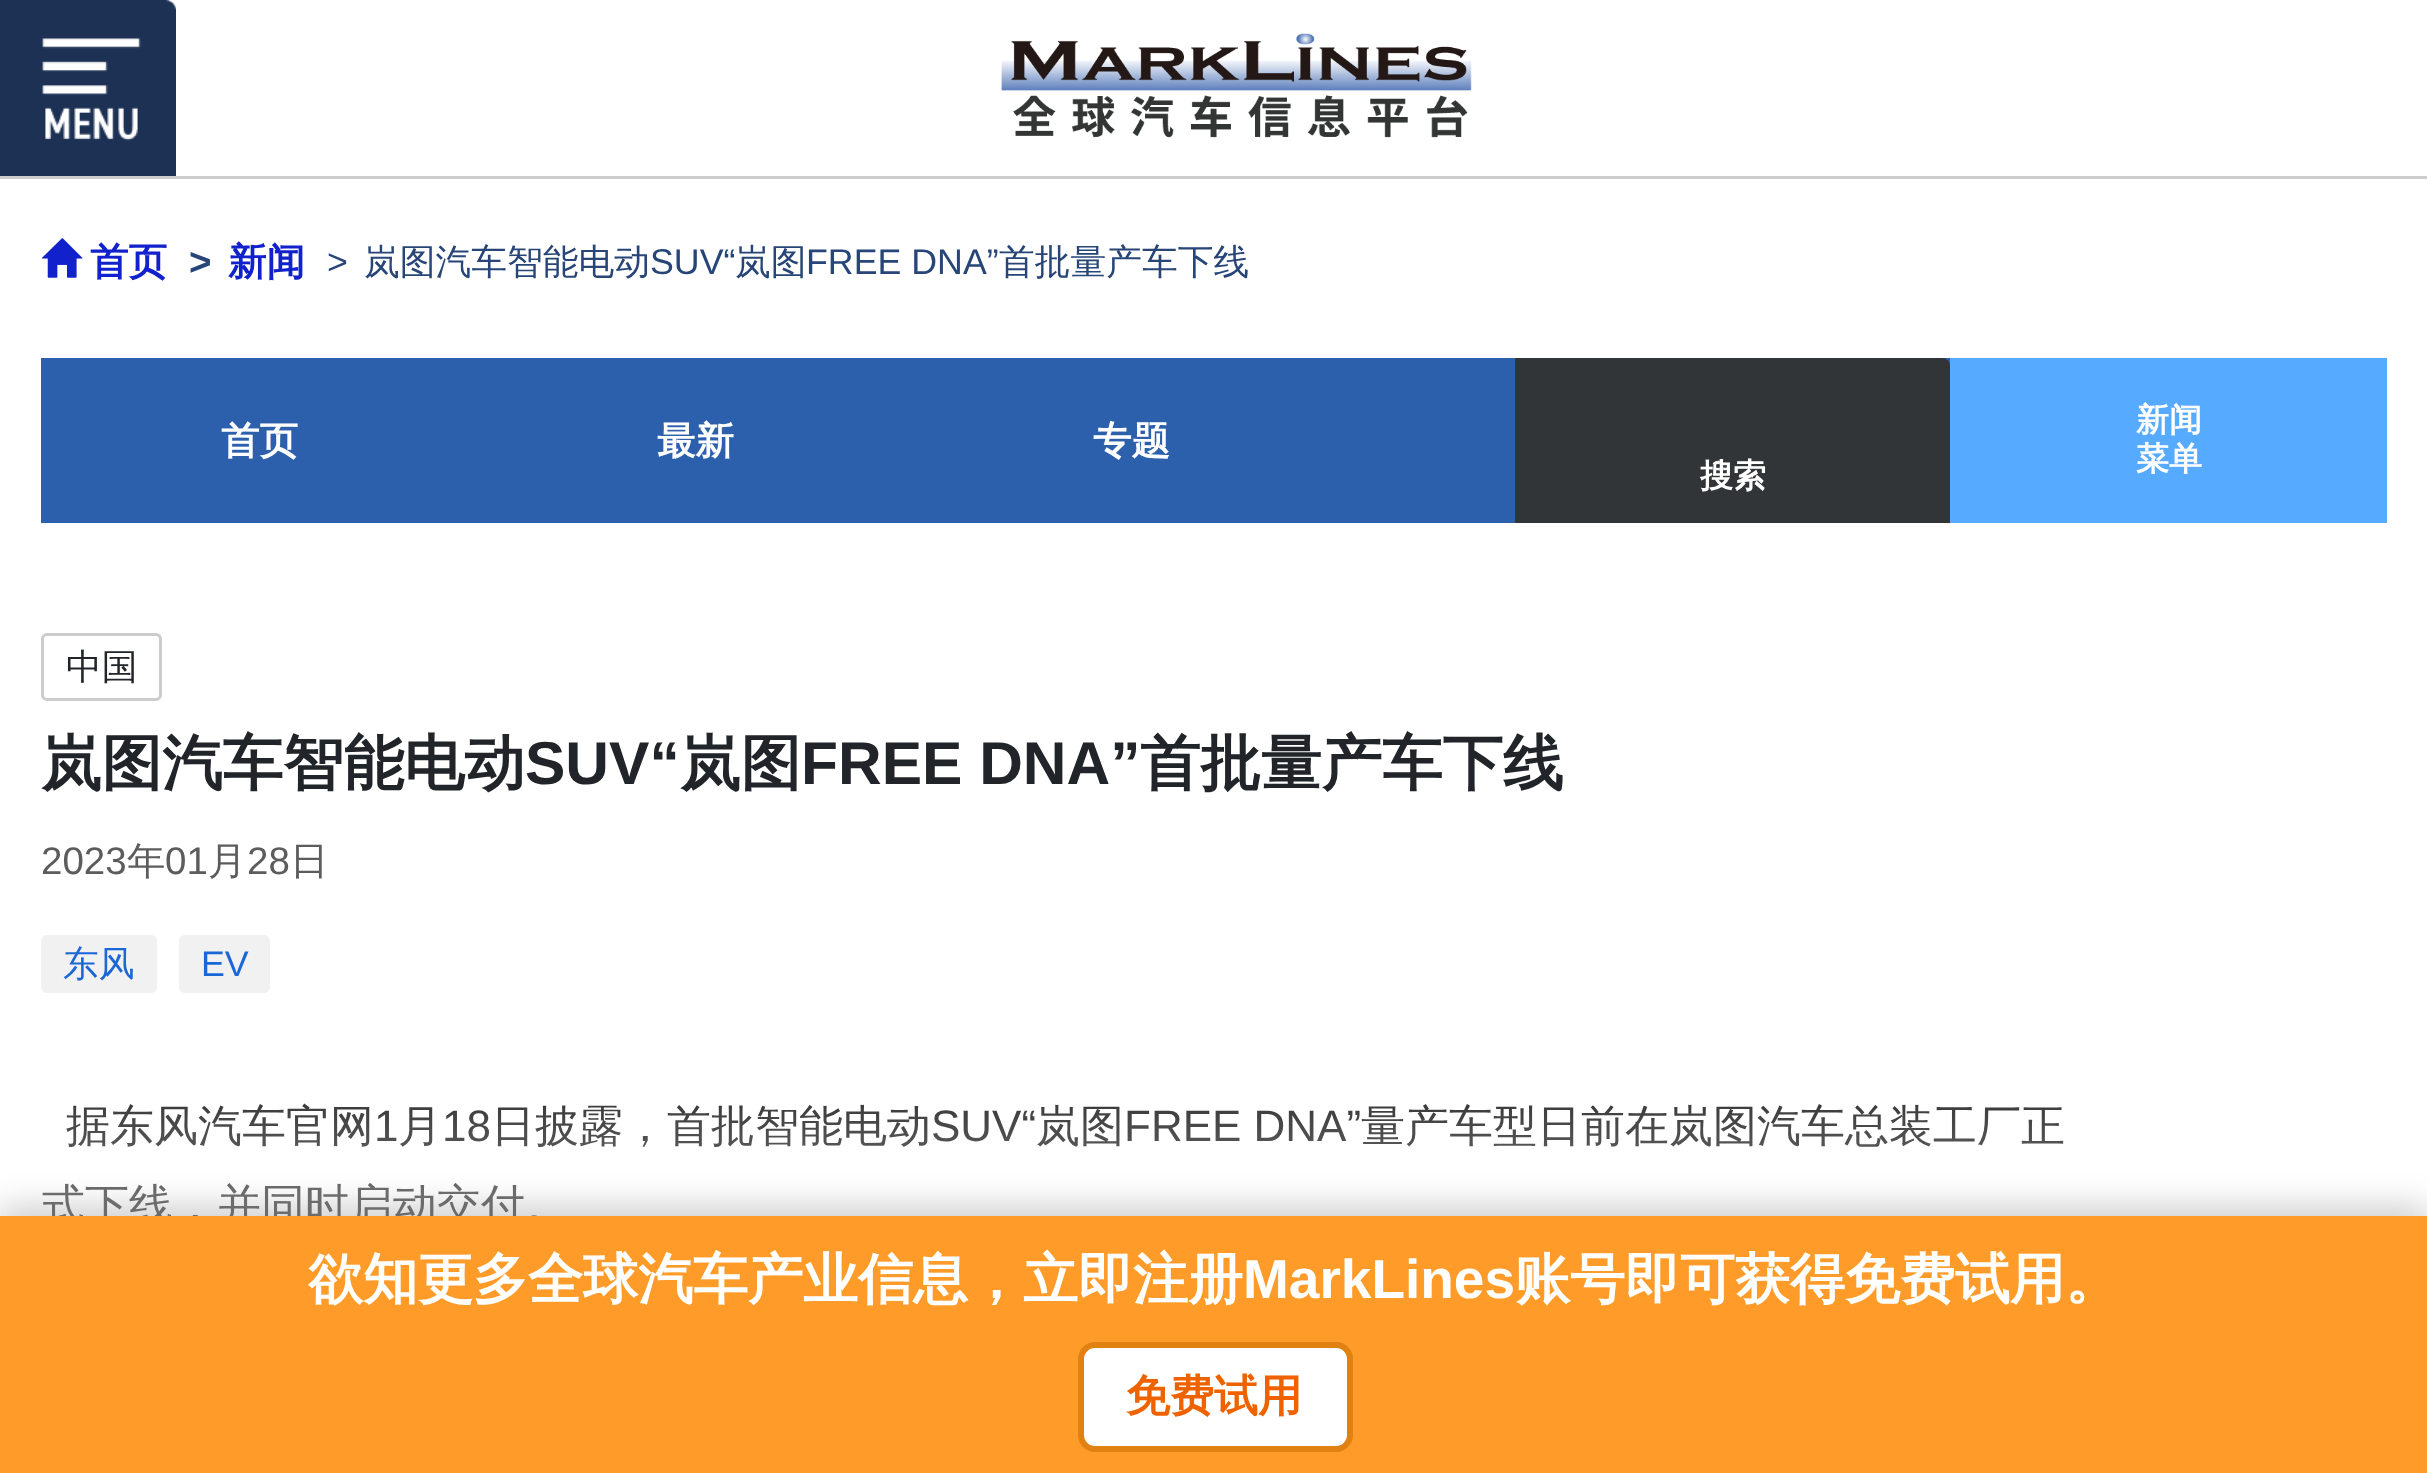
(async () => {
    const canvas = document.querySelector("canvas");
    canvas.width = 2427;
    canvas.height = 1473;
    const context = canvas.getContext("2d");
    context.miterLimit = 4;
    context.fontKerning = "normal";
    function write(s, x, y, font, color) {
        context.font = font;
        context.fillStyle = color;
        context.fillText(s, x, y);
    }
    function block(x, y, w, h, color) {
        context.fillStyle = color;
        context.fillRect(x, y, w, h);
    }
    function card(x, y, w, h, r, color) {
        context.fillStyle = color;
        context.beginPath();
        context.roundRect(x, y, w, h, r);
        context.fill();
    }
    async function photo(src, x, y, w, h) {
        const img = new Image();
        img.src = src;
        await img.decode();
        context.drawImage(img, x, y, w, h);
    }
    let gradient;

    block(0, 0, 2427, 1473, "rgb(255, 255, 255)");
    block(0, 176, 2427, 3, "rgb(204, 204, 204)");
    await photo("media/1.png", 0, 0, 176, 176);
    await photo("media/2.png", 1001, 33, 471, 105);
    await photo("media/3.png", 41, 238, 42, 40);
    write("首页", 90, 275, "bold 38.5px WenQuanYi Zen Hei", "rgb(17, 34, 204)");
    write(">", 189, 275, "bold 38.5px Liberation Sans", "rgb(39, 70, 119)");
    write("新闻", 228, 275, "bold 38.5px WenQuanYi Zen Hei", "rgb(17, 34, 204)");
    write(">", 327, 274, "35.75px Liberation Sans", "rgb(39, 70, 119)");
    write("岚图汽车智能电动", 364, 274, "500 35.75px WenQuanYi Zen Hei", "rgb(39, 70, 119)");
    write("SUV“", 650, 274, "35.75px Liberation Sans", "rgb(39, 70, 119)");
    write("岚图", 735, 274, "500 35.75px WenQuanYi Zen Hei", "rgb(39, 70, 119)");
    write("FREE DNA”", 806, 274, "35.75px Liberation Sans", "rgb(39, 70, 119)");
    write("首批量产车下线", 999, 274, "500 35.75px WenQuanYi Zen Hei", "rgb(39, 70, 119)");
    block(41, 358, 1909, 165, "rgb(45, 96, 172)");
    write("首页", 221, 454, "bold 38.5px WenQuanYi Zen Hei", "rgb(255, 255, 255)");
    write("最新", 657, 454, "bold 38.5px WenQuanYi Zen Hei", "rgb(255, 255, 255)");
    write("专题", 1093, 454, "bold 38.5px WenQuanYi Zen Hei", "rgb(255, 255, 255)");
    block(1950, 358, 437, 165, "rgb(86, 170, 255)");
    write("新闻", 2136, 431, "bold 33px WenQuanYi Zen Hei", "rgb(255, 255, 255)");
    write("菜单", 2136, 470, "bold 33px WenQuanYi Zen Hei", "rgb(255, 255, 255)");
    context.fillStyle = "rgb(50, 53, 55)";
    context.beginPath();
    context.roundRect(1515, 358, 435, 165, [0, 8, 0, 0]);
    context.fill();
    write("搜索", 1700, 487, "bold 33px WenQuanYi Zen Hei", "rgb(255, 255, 255)");
    context.beginPath();
    context.roundRect(42.5, 634.5, 118, 65, 4.5);
    context.strokeStyle = "rgb(204, 204, 204)";
    context.lineWidth = 3;
    context.stroke();
    write("中国", 66, 679, "500 35.75px WenQuanYi Zen Hei", "rgb(33, 37, 41)");
    write("岚图汽车智能电动", 41, 784, "bold 60.5px WenQuanYi Zen Hei", "rgb(33, 37, 41)");
    write("SUV“", 525, 784, "bold 60.5px Liberation Sans", "rgb(33, 37, 41)");
    write("岚图", 680, 784, "bold 60.5px WenQuanYi Zen Hei", "rgb(33, 37, 41)");
    write("FREE DNA”", 801, 784, "bold 60.5px Liberation Sans", "rgb(33, 37, 41)");
    write("首批量产车下线", 1140, 784, "bold 60.5px WenQuanYi Zen Hei", "rgb(33, 37, 41)");
    write("2023", 41, 874, "38.5px Liberation Sans", "rgb(92, 92, 92)");
    write("年", 127, 874, "500 38.5px WenQuanYi Zen Hei", "rgb(92, 92, 92)");
    write("01", 165, 874, "38.5px Liberation Sans", "rgb(92, 92, 92)");
    write("月", 208, 874, "500 38.5px WenQuanYi Zen Hei", "rgb(92, 92, 92)");
    write("28", 247, 874, "38.5px Liberation Sans", "rgb(92, 92, 92)");
    write("日", 290, 874, "500 38.5px WenQuanYi Zen Hei", "rgb(92, 92, 92)");
    card(41, 935, 116, 58, 6, "rgb(241, 241, 241)");
    write("东风", 63, 976, "500 35.75px WenQuanYi Zen Hei", "rgb(28, 103, 214)");
    card(179, 935, 91, 58, 6, "rgb(241, 241, 241)");
    write("EV", 201, 976, "35.75px Liberation Sans", "rgb(28, 103, 214)");
    write("据东风汽车官网", 66, 1141, "500 44px WenQuanYi Zen Hei", "rgb(51, 51, 51)");
    write("1", 374, 1141, "44px Liberation Sans", "rgb(51, 51, 51)");
    write("月", 398, 1141, "500 44px WenQuanYi Zen Hei", "rgb(51, 51, 51)");
    write("18", 442, 1141, "44px Liberation Sans", "rgb(51, 51, 51)");
    write("日披露，首批智能电动", 491, 1141, "500 44px WenQuanYi Zen Hei", "rgb(51, 51, 51)");
    write("SUV“", 931, 1141, "44px Liberation Sans", "rgb(51, 51, 51)");
    write("岚图", 1036, 1141, "500 44px WenQuanYi Zen Hei", "rgb(51, 51, 51)");
    write("FREE DNA”", 1124, 1141, "44px Liberation Sans", "rgb(51, 51, 51)");
    write("量产车型日前在岚图汽车总装工厂正", 1361, 1141, "500 44px WenQuanYi Zen Hei", "rgb(51, 51, 51)");
    write("式下线，并同时启动交付。", 41, 1220, "500 44px WenQuanYi Zen Hei", "rgb(51, 51, 51)");
    gradient = context.createLinearGradient(1070, 1089, 1070, 1419);
    gradient.addColorStop(0, "rgba(255, 255, 255, 0)");
    gradient.addColorStop(0.42, "rgba(255, 255, 255, 0.4)");
    gradient.addColorStop(0.67, "rgb(255, 255, 255)");
    gradient.addColorStop(1, "rgb(255, 255, 255)");
    context.fillStyle = gradient;
    context.fillRect(42, 1104, 2022, 112);
    context.fillStyle = "rgba(0, 0, 0, 0.2)";
    context.filter = "blur(16.5px)";
    context.beginPath();
    context.rect(0, 1207, 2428, 259);
    context.fill();
    context.filter = "none";
    block(0, 1216, 2427, 257, "rgb(255, 156, 41)");
    write("欲知更多全球汽车产业信息，立即注册", 308, 1298, "bold 55px WenQuanYi Zen Hei", "rgb(255, 255, 255)");
    write("MarkLines", 1243, 1298, "bold 55px Liberation Sans", "rgb(255, 255, 255)");
    write("账号即可获得免费试用。", 1515, 1298, "bold 55px WenQuanYi Zen Hei", "rgb(255, 255, 255)");
    context.beginPath();
    context.roundRect(1081, 1345, 269, 104, 14);
    context.fill();
    context.strokeStyle = "rgb(225, 129, 18)";
    context.lineWidth = 6;
    context.stroke();
    write("免费试用", 1126, 1411, "bold 44px WenQuanYi Zen Hei", "rgb(238, 99, 0)");
})();
